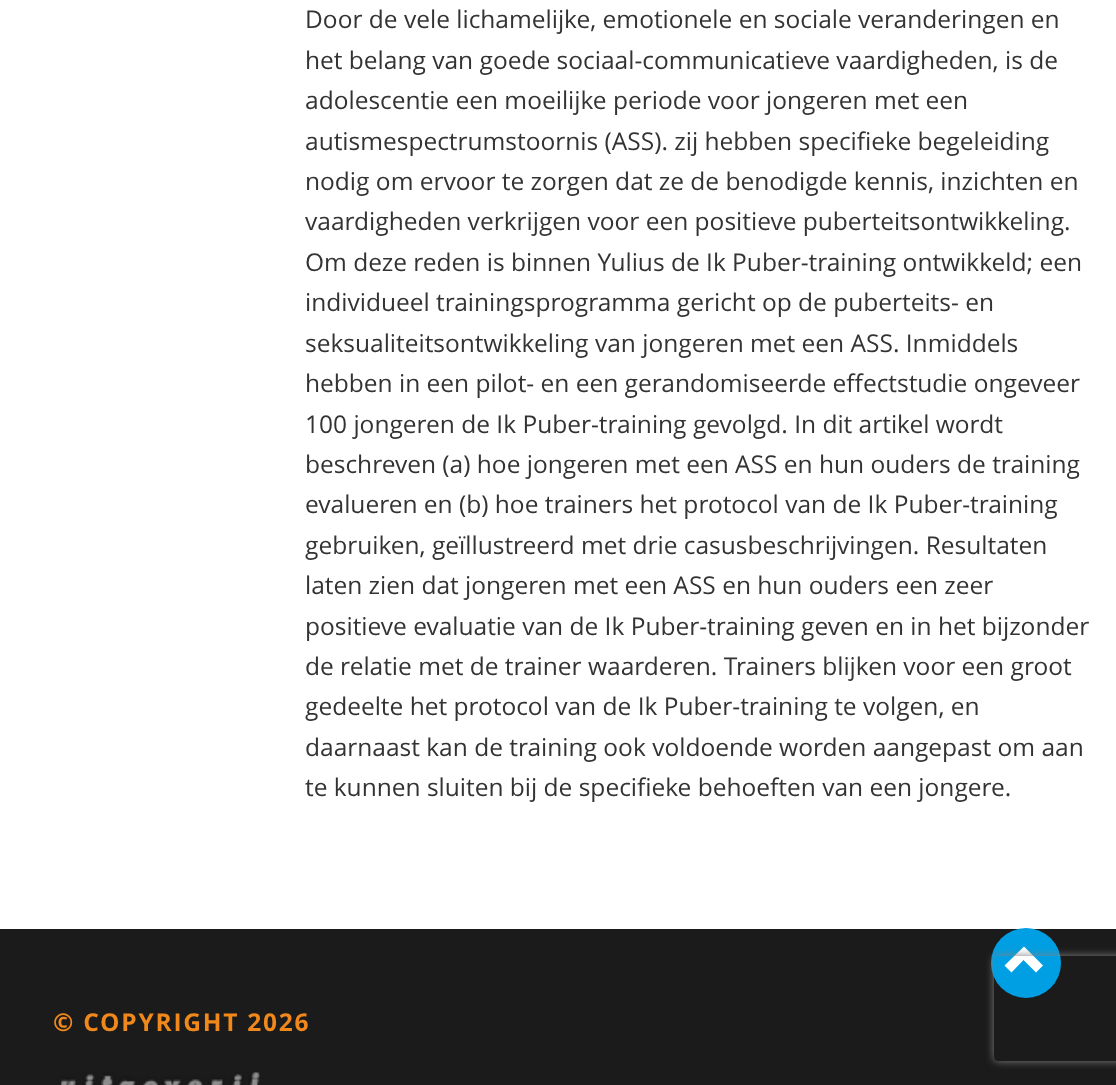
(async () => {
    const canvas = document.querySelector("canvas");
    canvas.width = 1116;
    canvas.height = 1085;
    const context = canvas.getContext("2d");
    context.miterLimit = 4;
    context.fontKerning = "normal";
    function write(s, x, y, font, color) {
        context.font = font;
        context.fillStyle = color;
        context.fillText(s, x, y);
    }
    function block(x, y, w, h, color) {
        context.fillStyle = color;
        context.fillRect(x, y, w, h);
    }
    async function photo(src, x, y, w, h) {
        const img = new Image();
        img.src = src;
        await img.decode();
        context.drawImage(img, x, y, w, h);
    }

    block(0, 0, 1116, 1085, "rgb(255, 255, 255)");
    write("Door de vele lichamelijke, emotionele en sociale veranderingen en", 305, 28, "24.5px Open Sans", "rgb(51, 51, 51)");
    write("het belang van goede sociaal-communicatieve vaardigheden, is de", 305, 69, "24.5px Open Sans", "rgb(51, 51, 51)");
    write("adolescentie een moeilijke periode voor jongeren met een", 305, 109, "24.5px Open Sans", "rgb(51, 51, 51)");
    write("autismespectrumstoornis (ASS). zij hebben specifieke begeleiding", 305, 150, "24.5px Open Sans", "rgb(51, 51, 51)");
    write("nodig om ervoor te zorgen dat ze de benodigde kennis, inzichten en", 305, 190, "24.5px Open Sans", "rgb(51, 51, 51)");
    write("vaardigheden verkrijgen voor een positieve puberteitsontwikkeling.", 305, 230, "24.5px Open Sans", "rgb(51, 51, 51)");
    write("Om deze reden is binnen Yulius de Ik Puber-training ontwikkeld; een", 305, 271, "24.5px Open Sans", "rgb(51, 51, 51)");
    write("individueel trainingsprogramma gericht op de puberteits- en", 305, 311, "24.5px Open Sans", "rgb(51, 51, 51)");
    write("seksualiteitsontwikkeling van jongeren met een ASS. Inmiddels", 305, 352, "24.5px Open Sans", "rgb(51, 51, 51)");
    write("hebben in een pilot- en een gerandomiseerde effectstudie ongeveer", 305, 392, "24.5px Open Sans", "rgb(51, 51, 51)");
    write("100 jongeren de Ik Puber-training gevolgd. In dit artikel wordt", 305, 433, "24.5px Open Sans", "rgb(51, 51, 51)");
    write("beschreven (a) hoe jongeren met een ASS en hun ouders de training", 305, 473, "24.5px Open Sans", "rgb(51, 51, 51)");
    write("evalueren en (b) hoe trainers het protocol van de Ik Puber-training", 305, 513, "24.5px Open Sans", "rgb(51, 51, 51)");
    write("gebruiken, geïllustreerd met drie casusbeschrijvingen. Resultaten", 305, 554, "24.5px Open Sans", "rgb(51, 51, 51)");
    write("laten zien dat jongeren met een ASS en hun ouders een zeer", 305, 594, "24.5px Open Sans", "rgb(51, 51, 51)");
    write("positieve evaluatie van de Ik Puber-training geven en in het bijzonder", 305, 635, "24.5px Open Sans", "rgb(51, 51, 51)");
    write("de relatie met de trainer waarderen. Trainers blijken voor een groot", 305, 675, "24.5px Open Sans", "rgb(51, 51, 51)");
    write("gedeelte het protocol van de Ik Puber-training te volgen, en", 305, 715, "24.5px Open Sans", "rgb(51, 51, 51)");
    write("daarnaast kan de training ook voldoende worden aangepast om aan", 305, 756, "24.5px Open Sans", "rgb(51, 51, 51)");
    write("te kunnen sluiten bij de specifieke behoeften van een jongere.", 305, 796, "24.5px Open Sans", "rgb(51, 51, 51)");
    block(0, 929, 1116, 156, "rgb(27, 27, 27)");
    context.fillStyle = "rgb(0, 159, 227)";
    context.beginPath();
    context.arc(1026, 963, 35, 0, Math.PI * 2);
    context.fill();
    context.fillStyle = "rgb(255, 255, 255)";
    context.beginPath();
    context.moveTo(1043, 965.5);
    context.lineTo(1036, 972.5);
    context.lineTo(1023.5, 960);
    context.lineTo(1011.5, 972.5);
    context.lineTo(1004.5, 965.5);
    context.lineTo(1024, 946.5);
    context.closePath();
    context.fill();
    context.letterSpacing = "1.75px";
    write("© COPYRIGHT 2026", 53, 1031, "bold 24.5px Open Sans", "rgb(241, 136, 28)");
    await photo("media/1.png", 60, 1072, 200, 13);
    context.save();
    context.beginPath();
    context.moveTo(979, 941);
    context.lineTo(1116, 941);
    context.lineTo(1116, 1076);
    context.lineTo(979, 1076);
    context.closePath();
    context.moveTo(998, 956);
    context.lineTo(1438, 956);
    context.bezierCurveTo(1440, 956, 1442, 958, 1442, 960);
    context.lineTo(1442, 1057);
    context.bezierCurveTo(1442, 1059, 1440, 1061, 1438, 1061);
    context.lineTo(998, 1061);
    context.bezierCurveTo(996, 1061, 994, 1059, 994, 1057);
    context.lineTo(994, 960);
    context.bezierCurveTo(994, 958, 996, 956, 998, 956);
    context.closePath();
    context.clip("evenodd");
    context.fillStyle = "rgb(128, 128, 128)";
    context.filter = "blur(4.5px)";
    context.beginPath();
    context.roundRect(994, 956, 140, 105, 4);
    context.fill();
    context.filter = "none";
    context.restore();
})();
